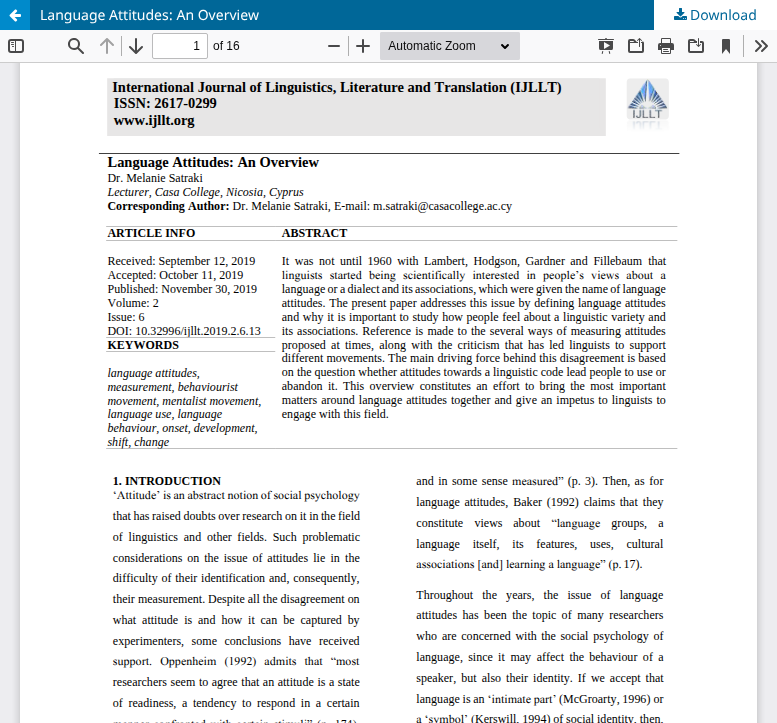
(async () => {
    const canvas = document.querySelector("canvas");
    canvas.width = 777;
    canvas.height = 723;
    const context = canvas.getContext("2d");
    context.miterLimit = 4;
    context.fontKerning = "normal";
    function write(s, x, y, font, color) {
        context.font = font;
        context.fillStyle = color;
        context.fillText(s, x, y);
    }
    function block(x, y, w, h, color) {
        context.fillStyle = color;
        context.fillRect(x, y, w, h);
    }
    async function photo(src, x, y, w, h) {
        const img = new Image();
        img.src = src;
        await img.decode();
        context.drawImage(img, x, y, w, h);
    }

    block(0, 0, 777, 723, "rgb(255, 255, 255)");
    block(30, 0, 624, 30, "rgb(0, 103, 152)");
    block(0, 0, 30, 30, "rgb(0, 138, 203)");
    await photo("media/1.png", 9, 9, 12, 13);
    write("Language Attitudes: An Overview", 40, 20, "14px Noto Sans", "rgb(255, 255, 255)");
    await photo("media/2.png", 674, 8, 13, 12);
    write("Download", 690, 20, "14px Noto Sans", "rgb(0, 103, 152)");
    await photo("media/3.png", 0, 30, 777, 693);
})();
